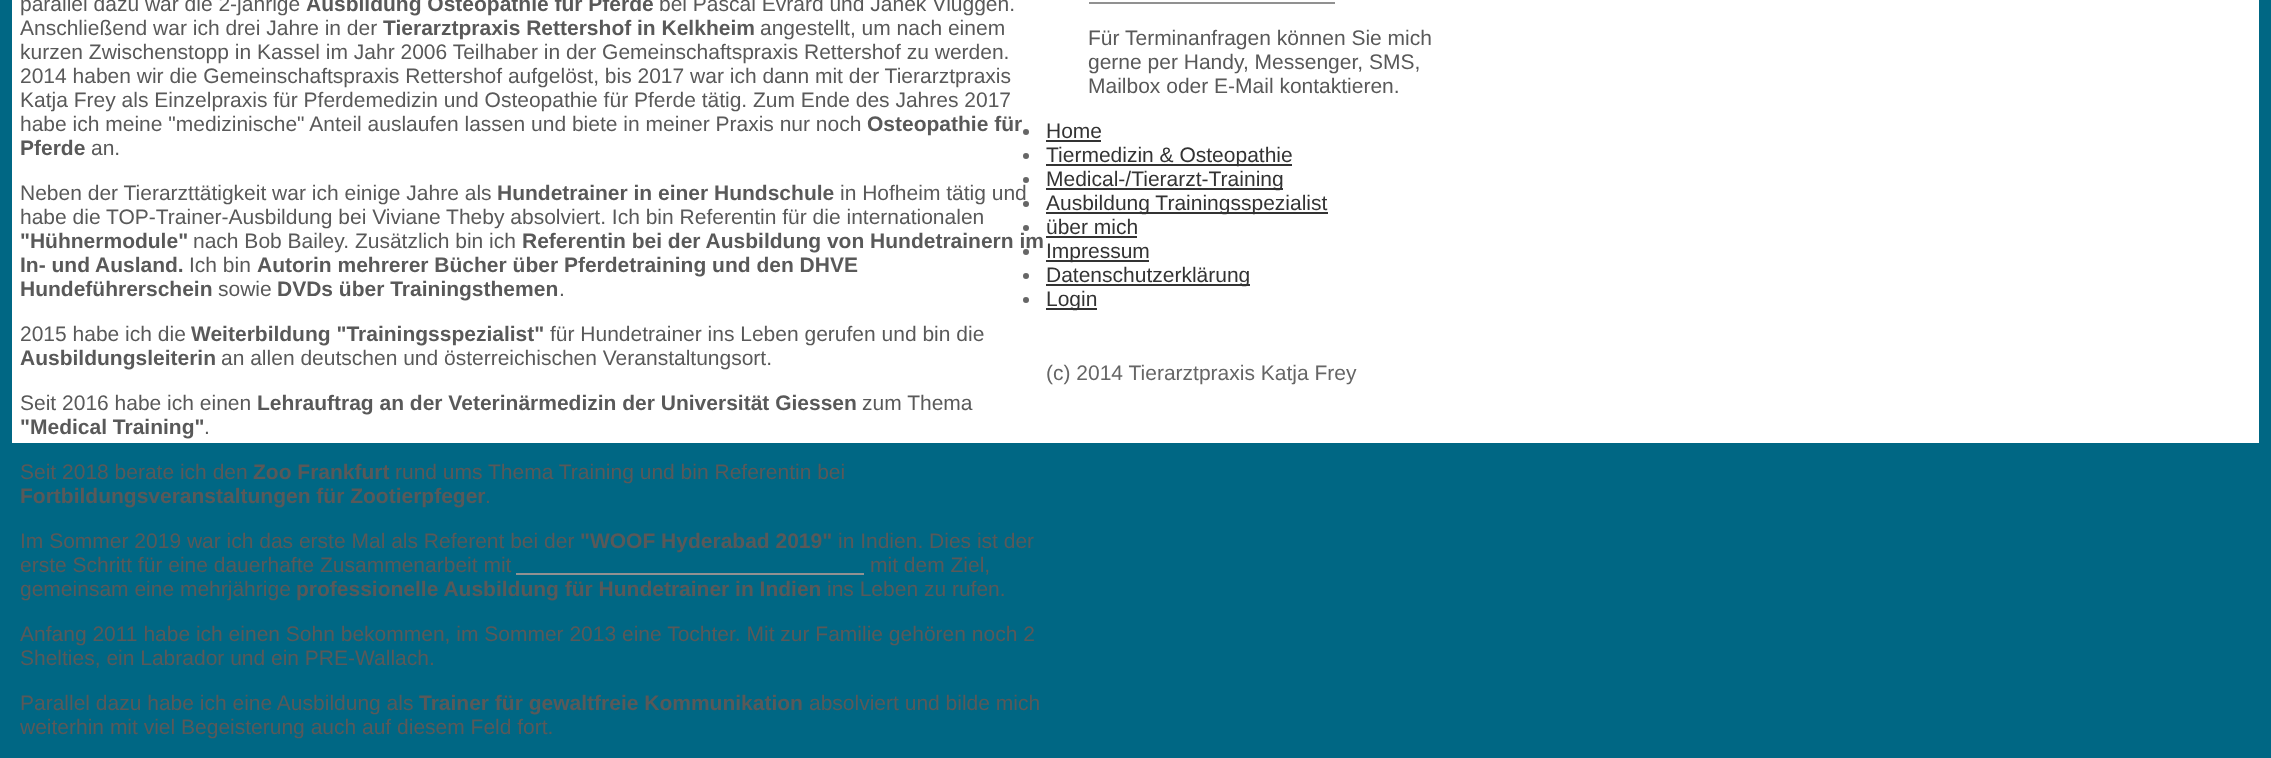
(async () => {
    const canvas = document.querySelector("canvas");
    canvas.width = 2271;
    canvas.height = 758;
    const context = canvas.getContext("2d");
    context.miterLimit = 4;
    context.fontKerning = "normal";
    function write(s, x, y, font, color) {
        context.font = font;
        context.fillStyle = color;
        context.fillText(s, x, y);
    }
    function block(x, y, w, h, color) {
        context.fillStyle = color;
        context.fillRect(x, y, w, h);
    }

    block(0, 0, 2271, 758, "rgb(0, 103, 132)");
    block(12, 0, 2247, 443, "rgb(255, 255, 255)");
    write("parallel dazu war die 2-jährige", 20, 11, "21px Liberation Sans", "rgb(89, 89, 89)");
    write("Ausbildung Osteopathie für Pferde", 306, 11, "bold 21px Liberation Sans", "rgb(89, 89, 89)");
    write("bei Pascal Evrard und Janek Vluggen.", 659, 11, "21px Liberation Sans", "rgb(89, 89, 89)");
    write("Anschließend war ich drei Jahre in der", 20, 35, "21px Liberation Sans", "rgb(89, 89, 89)");
    write("Tierarztpraxis Rettershof in Kelkheim", 383, 35, "bold 21px Liberation Sans", "rgb(89, 89, 89)");
    write("angestellt, um nach einem", 760, 35, "21px Liberation Sans", "rgb(89, 89, 89)");
    write("kurzen Zwischenstopp in Kassel im Jahr 2006 Teilhaber in der Gemeinschaftspraxis Rettershof zu werden.", 20, 59, "21px Liberation Sans", "rgb(89, 89, 89)");
    write("2014 haben wir die Gemeinschaftspraxis Rettershof aufgelöst, bis 2017 war ich dann mit der Tierarztpraxis", 20, 83, "21px Liberation Sans", "rgb(89, 89, 89)");
    write("Katja Frey als Einzelpraxis für Pferdemedizin und Osteopathie für Pferde tätig. Zum Ende des Jahres 2017", 20, 107, "21px Liberation Sans", "rgb(89, 89, 89)");
    write("habe ich meine \"medizinische\" Anteil auslaufen lassen und biete in meiner Praxis nur noch", 20, 131, "21px Liberation Sans", "rgb(89, 89, 89)");
    write("Osteopathie für", 867, 131, "bold 21px Liberation Sans", "rgb(89, 89, 89)");
    write("Pferde", 20, 155, "bold 21px Liberation Sans", "rgb(89, 89, 89)");
    write("an.", 91, 155, "21px Liberation Sans", "rgb(89, 89, 89)");
    write("Neben der Tierarzttätigkeit war ich einige Jahre als", 20, 200, "21px Liberation Sans", "rgb(89, 89, 89)");
    write("Hundetrainer in einer Hundschule", 497, 200, "bold 21px Liberation Sans", "rgb(89, 89, 89)");
    write("in Hofheim tätig und", 840, 200, "21px Liberation Sans", "rgb(89, 89, 89)");
    write("habe die TOP-Trainer-Ausbildung bei Viviane Theby absolviert. Ich bin Referentin für die internationalen", 20, 224, "21px Liberation Sans", "rgb(89, 89, 89)");
    write("\"Hühnermodule\"", 20, 248, "bold 21px Liberation Sans", "rgb(89, 89, 89)");
    write("nach Bob Bailey. Zusätzlich bin ich", 193, 248, "21px Liberation Sans", "rgb(89, 89, 89)");
    write("Referentin bei der Ausbildung von Hundetrainern im", 522, 248, "bold 21px Liberation Sans", "rgb(89, 89, 89)");
    write("In- und Ausland.", 20, 272, "bold 21px Liberation Sans", "rgb(89, 89, 89)");
    write("Ich bin", 189, 272, "21px Liberation Sans", "rgb(89, 89, 89)");
    write("Autorin mehrerer Bücher über Pferdetraining und den DHVE", 257, 272, "bold 21px Liberation Sans", "rgb(89, 89, 89)");
    write("Hundeführerschein", 20, 296, "bold 21px Liberation Sans", "rgb(89, 89, 89)");
    write("sowie", 218, 296, "21px Liberation Sans", "rgb(89, 89, 89)");
    write("DVDs über Trainingsthemen", 277, 296, "bold 21px Liberation Sans", "rgb(89, 89, 89)");
    write(".", 559, 296, "21px Liberation Sans", "rgb(89, 89, 89)");
    write("2015 habe ich die", 20, 341, "21px Liberation Sans", "rgb(89, 89, 89)");
    write("Weiterbildung \"Trainingsspezialist\"", 191, 341, "bold 21px Liberation Sans", "rgb(89, 89, 89)");
    write("für Hundetrainer ins Leben gerufen und bin die", 550, 341, "21px Liberation Sans", "rgb(89, 89, 89)");
    write("Ausbildungsleiterin", 20, 365, "bold 21px Liberation Sans", "rgb(89, 89, 89)");
    write("an allen deutschen und österreichischen Veranstaltungsort.", 221, 365, "21px Liberation Sans", "rgb(89, 89, 89)");
    write("Seit 2016 habe ich einen", 20, 410, "21px Liberation Sans", "rgb(89, 89, 89)");
    write("Lehrauftrag an der Veterinärmedizin der Universität Giessen", 257, 410, "bold 21px Liberation Sans", "rgb(89, 89, 89)");
    write("zum Thema", 862, 410, "21px Liberation Sans", "rgb(89, 89, 89)");
    write("\"Medical Training\"", 20, 434, "bold 21px Liberation Sans", "rgb(89, 89, 89)");
    write(".", 204, 434, "21px Liberation Sans", "rgb(89, 89, 89)");
    write("Seit 2018 berate ich den", 20, 479, "21px Liberation Sans", "rgb(89, 89, 89)");
    write("Zoo Frankfurt", 253, 479, "bold 21px Liberation Sans", "rgb(89, 89, 89)");
    write("rund ums Thema Training und bin Referentin bei", 395, 479, "21px Liberation Sans", "rgb(89, 89, 89)");
    write("Fortbildungsveranstaltungen für Zootierpfeger", 20, 503, "bold 21px Liberation Sans", "rgb(89, 89, 89)");
    write(".", 485, 503, "21px Liberation Sans", "rgb(89, 89, 89)");
    write("Im Sommer 2019 war ich das erste Mal als Referent bei der", 20, 548, "21px Liberation Sans", "rgb(89, 89, 89)");
    write("\"WOOF Hyderabad 2019\"", 580, 548, "bold 21px Liberation Sans", "rgb(89, 89, 89)");
    write("in Indien. Dies ist der", 838, 548, "21px Liberation Sans", "rgb(89, 89, 89)");
    write("erste Schritt für eine dauerhafte Zusammenarbeit mit", 20, 572, "21px Liberation Sans", "rgb(89, 89, 89)");
    block(516, 573, 348, 2, "rgb(145, 145, 145)");
    write("mit dem Ziel,", 870, 572, "21px Liberation Sans", "rgb(89, 89, 89)");
    write("gemeinsam eine mehrjährige", 20, 596, "21px Liberation Sans", "rgb(89, 89, 89)");
    write("professionelle Ausbildung für Hundetrainer in Indien", 296, 596, "bold 21px Liberation Sans", "rgb(89, 89, 89)");
    write("ins Leben zu rufen.", 827, 596, "21px Liberation Sans", "rgb(89, 89, 89)");
    write("Anfang 2011 habe ich einen Sohn bekommen, im Sommer 2013 eine Tochter. Mit zur Familie gehören noch 2", 20, 641, "21px Liberation Sans", "rgb(89, 89, 89)");
    write("Shelties, ein Labrador und ein PRE-Wallach.", 20, 665, "21px Liberation Sans", "rgb(89, 89, 89)");
    write("Parallel dazu habe ich eine Ausbildung als", 20, 710, "21px Liberation Sans", "rgb(89, 89, 89)");
    write("Trainer für gewaltfreie Kommunikation", 419, 710, "bold 21px Liberation Sans", "rgb(89, 89, 89)");
    write("absolviert und bilde mich", 809, 710, "21px Liberation Sans", "rgb(89, 89, 89)");
    write("weiterhin mit viel Begeisterung auch auf diesem Feld fort.", 20, 734, "21px Liberation Sans", "rgb(89, 89, 89)");
    block(1089, 2, 246, 2, "rgb(145, 145, 145)");
    write("Für Terminanfragen können Sie mich", 1088, 45, "21px Liberation Sans", "rgb(89, 89, 89)");
    write("gerne per Handy, Messenger, SMS,", 1088, 69, "21px Liberation Sans", "rgb(89, 89, 89)");
    write("Mailbox oder E-Mail kontaktieren.", 1088, 93, "21px Liberation Sans", "rgb(89, 89, 89)");
    context.fillStyle = "rgb(102, 102, 102)";
    context.beginPath();
    context.arc(1026, 132, 3, 0, Math.PI * 2);
    context.fill();
    write("Home", 1046, 138, "21px Liberation Sans", "rgb(51, 51, 51)");
    block(1046, 140, 55, 2, "rgb(51, 51, 51)");
    context.fillStyle = "rgb(102, 102, 102)";
    context.beginPath();
    context.arc(1026, 156, 3, 0, Math.PI * 2);
    context.fill();
    block(1046, 164, 246, 2, "rgb(51, 51, 51)");
    write("Tiermedizin & Osteopathie", 1046, 162, "21px Liberation Sans", "rgb(51, 51, 51)");
    context.fillStyle = "rgb(102, 102, 102)";
    context.beginPath();
    context.arc(1026, 180, 3, 0, Math.PI * 2);
    context.fill();
    block(1046, 188, 237, 2, "rgb(51, 51, 51)");
    write("Medical-/Tierarzt-Training", 1046, 186, "21px Liberation Sans", "rgb(51, 51, 51)");
    context.fillStyle = "rgb(102, 102, 102)";
    context.beginPath();
    context.arc(1026, 204, 3, 0, Math.PI * 2);
    context.fill();
    block(1046, 212, 282, 2, "rgb(51, 51, 51)");
    write("Ausbildung Trainingsspezialist", 1046, 210, "21px Liberation Sans", "rgb(51, 51, 51)");
    context.fillStyle = "rgb(102, 102, 102)";
    context.beginPath();
    context.arc(1026, 228, 3, 0, Math.PI * 2);
    context.fill();
    write("über mich", 1046, 234, "21px Liberation Sans", "rgb(51, 51, 51)");
    block(1046, 236, 91, 2, "rgb(51, 51, 51)");
    context.fillStyle = "rgb(102, 102, 102)";
    context.beginPath();
    context.arc(1026, 252, 3, 0, Math.PI * 2);
    context.fill();
    block(1046, 260, 103, 2, "rgb(51, 51, 51)");
    write("Impressum", 1046, 258, "21px Liberation Sans", "rgb(51, 51, 51)");
    context.fillStyle = "rgb(102, 102, 102)";
    context.beginPath();
    context.arc(1026, 276, 3, 0, Math.PI * 2);
    context.fill();
    block(1046, 284, 204, 2, "rgb(51, 51, 51)");
    write("Datenschutzerklärung", 1046, 282, "21px Liberation Sans", "rgb(51, 51, 51)");
    context.fillStyle = "rgb(102, 102, 102)";
    context.beginPath();
    context.arc(1026, 300, 3, 0, Math.PI * 2);
    context.fill();
    block(1046, 308, 51, 2, "rgb(51, 51, 51)");
    write("Login", 1046, 306, "21px Liberation Sans", "rgb(51, 51, 51)");
    write("(c) 2014 Tierarztpraxis Katja Frey", 1046, 380, "21px Liberation Sans", "rgb(102, 102, 102)");
})();
